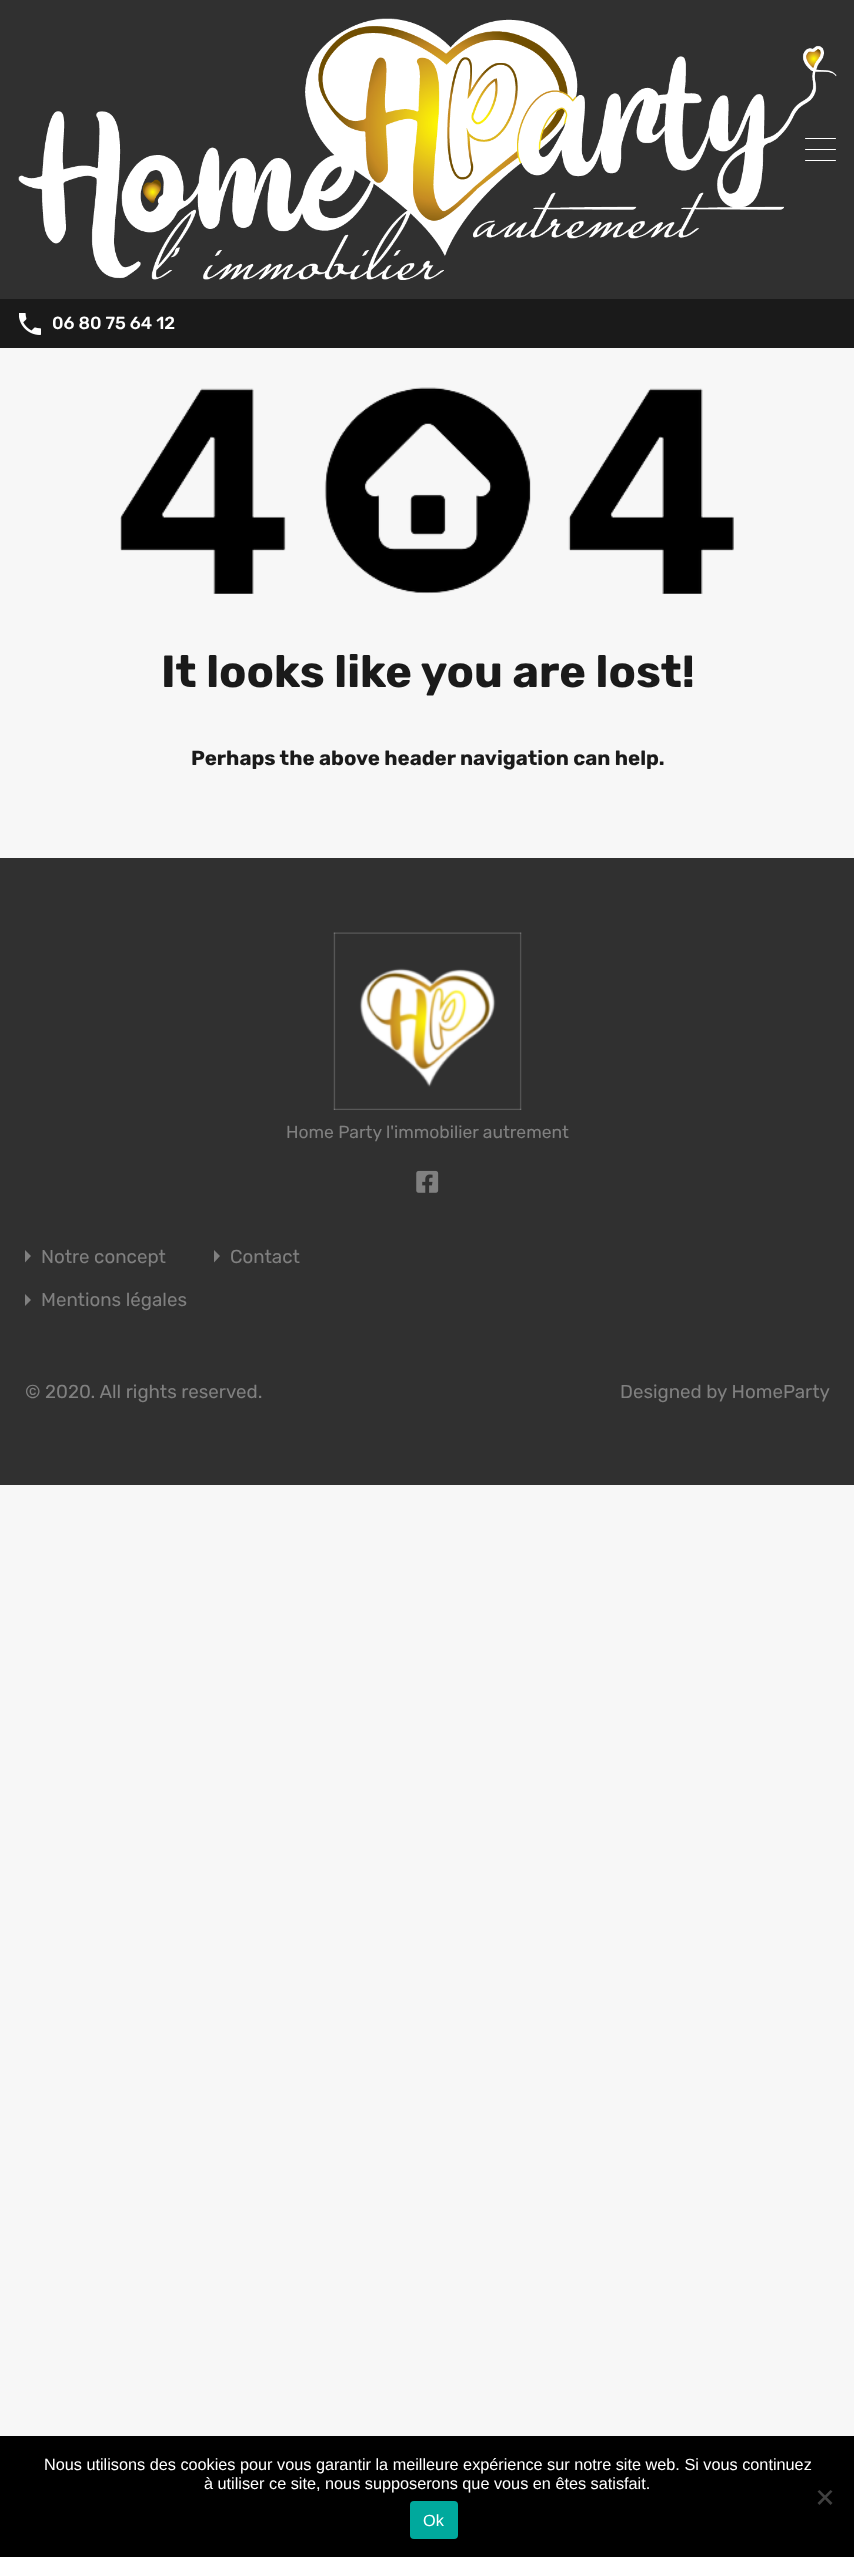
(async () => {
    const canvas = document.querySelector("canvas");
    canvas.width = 854;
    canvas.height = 2557;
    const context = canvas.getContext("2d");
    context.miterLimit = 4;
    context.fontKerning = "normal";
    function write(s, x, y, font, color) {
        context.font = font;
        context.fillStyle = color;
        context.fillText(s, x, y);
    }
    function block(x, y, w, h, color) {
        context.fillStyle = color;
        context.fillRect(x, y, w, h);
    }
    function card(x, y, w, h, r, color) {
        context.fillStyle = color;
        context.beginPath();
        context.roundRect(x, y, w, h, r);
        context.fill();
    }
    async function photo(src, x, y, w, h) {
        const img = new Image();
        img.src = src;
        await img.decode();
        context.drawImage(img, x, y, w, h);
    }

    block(0, 0, 854, 2557, "rgb(247, 247, 247)");
    block(0, 0, 854, 299, "rgb(48, 48, 48)");
    await photo("media/1.png", 18, 18, 819, 262);
    card(805, 149, 31, 1, 0.5, "rgb(255, 255, 255)");
    card(805, 138, 31, 1, 0.5, "rgb(255, 255, 255)");
    card(805, 160, 31, 1, 0.5, "rgb(255, 255, 255)");
    block(0, 299, 854, 49, "rgb(26, 26, 26)");
    await photo("media/2.png", 19, 313, 22, 22);
    write("06 80 75 64 12", 52, 329, "500 17.5px Rubik", "rgb(255, 255, 255)");
    await photo("media/3.png", 120, 387, 614, 207);
    write("It looks like you are lost!", 161, 687, "bold 45px Rubik", "rgb(26, 26, 26)");
    write("Perhaps the above header navigation can help.", 191, 765, "bold 20.45px Rubik", "rgb(26, 26, 26)");
    block(0, 858, 854, 627, "rgb(48, 48, 48)");
    await photo("media/4.png", 333, 932, 189, 178);
    write("Home Party l'immobilier autrement", 286, 1138, "17.5px Rubik", "rgb(128, 128, 128)");
    await photo("media/5.png", 416, 1170, 23, 23);
    context.beginPath();
    context.moveTo(25, 1262.5);
    context.lineTo(25, 1250);
    context.lineTo(31, 1256);
    context.closePath();
    context.fill();
    write("Notre concept", 41, 1263, "18.75px Rubik", "rgb(128, 128, 128)");
    context.beginPath();
    context.moveTo(214, 1262.5);
    context.lineTo(214, 1250);
    context.lineTo(220, 1256);
    context.closePath();
    context.fill();
    write("Contact", 230, 1263, "18.75px Rubik", "rgb(128, 128, 128)");
    context.beginPath();
    context.moveTo(25, 1306);
    context.lineTo(25, 1294);
    context.lineTo(31, 1300);
    context.closePath();
    context.fill();
    write("Mentions légales", 41, 1306, "18.75px Rubik", "rgb(128, 128, 128)");
    write("© 2020. All rights reserved.", 25, 1398, "18.75px Rubik", "rgb(128, 128, 128)");
    write("Designed by HomeParty", 620, 1398, "18.75px Rubik", "rgb(128, 128, 128)");
    block(0, 2436, 854, 121, "rgb(0, 0, 0)");
    write("Nous utilisons des cookies pour vous garantir la meilleure expérience sur notre site web. Si vous continuez", 44, 2470, "16.25px Liberation Sans", "rgb(255, 255, 255)");
    write("à utiliser ce site, nous supposerons que vous en êtes satisfait.", 204, 2489, "16.25px Liberation Sans", "rgb(255, 255, 255)");
    context.fillStyle = "rgb(64, 64, 64)";
    context.beginPath();
    context.moveTo(830.5, 2490);
    context.lineTo(832.5, 2491.5);
    context.lineTo(819.5, 2505);
    context.lineTo(817.5, 2503);
    context.closePath();
    context.fill();
    context.beginPath();
    context.moveTo(817.5, 2491.5);
    context.lineTo(819.5, 2490);
    context.lineTo(832.5, 2503);
    context.lineTo(830.5, 2505);
    context.closePath();
    context.fill();
    card(410, 2501, 48, 38, 4, "rgb(0, 169, 157)");
    write("Ok", 423, 2526, "16.25px Liberation Sans", "rgb(255, 255, 255)");
})();
